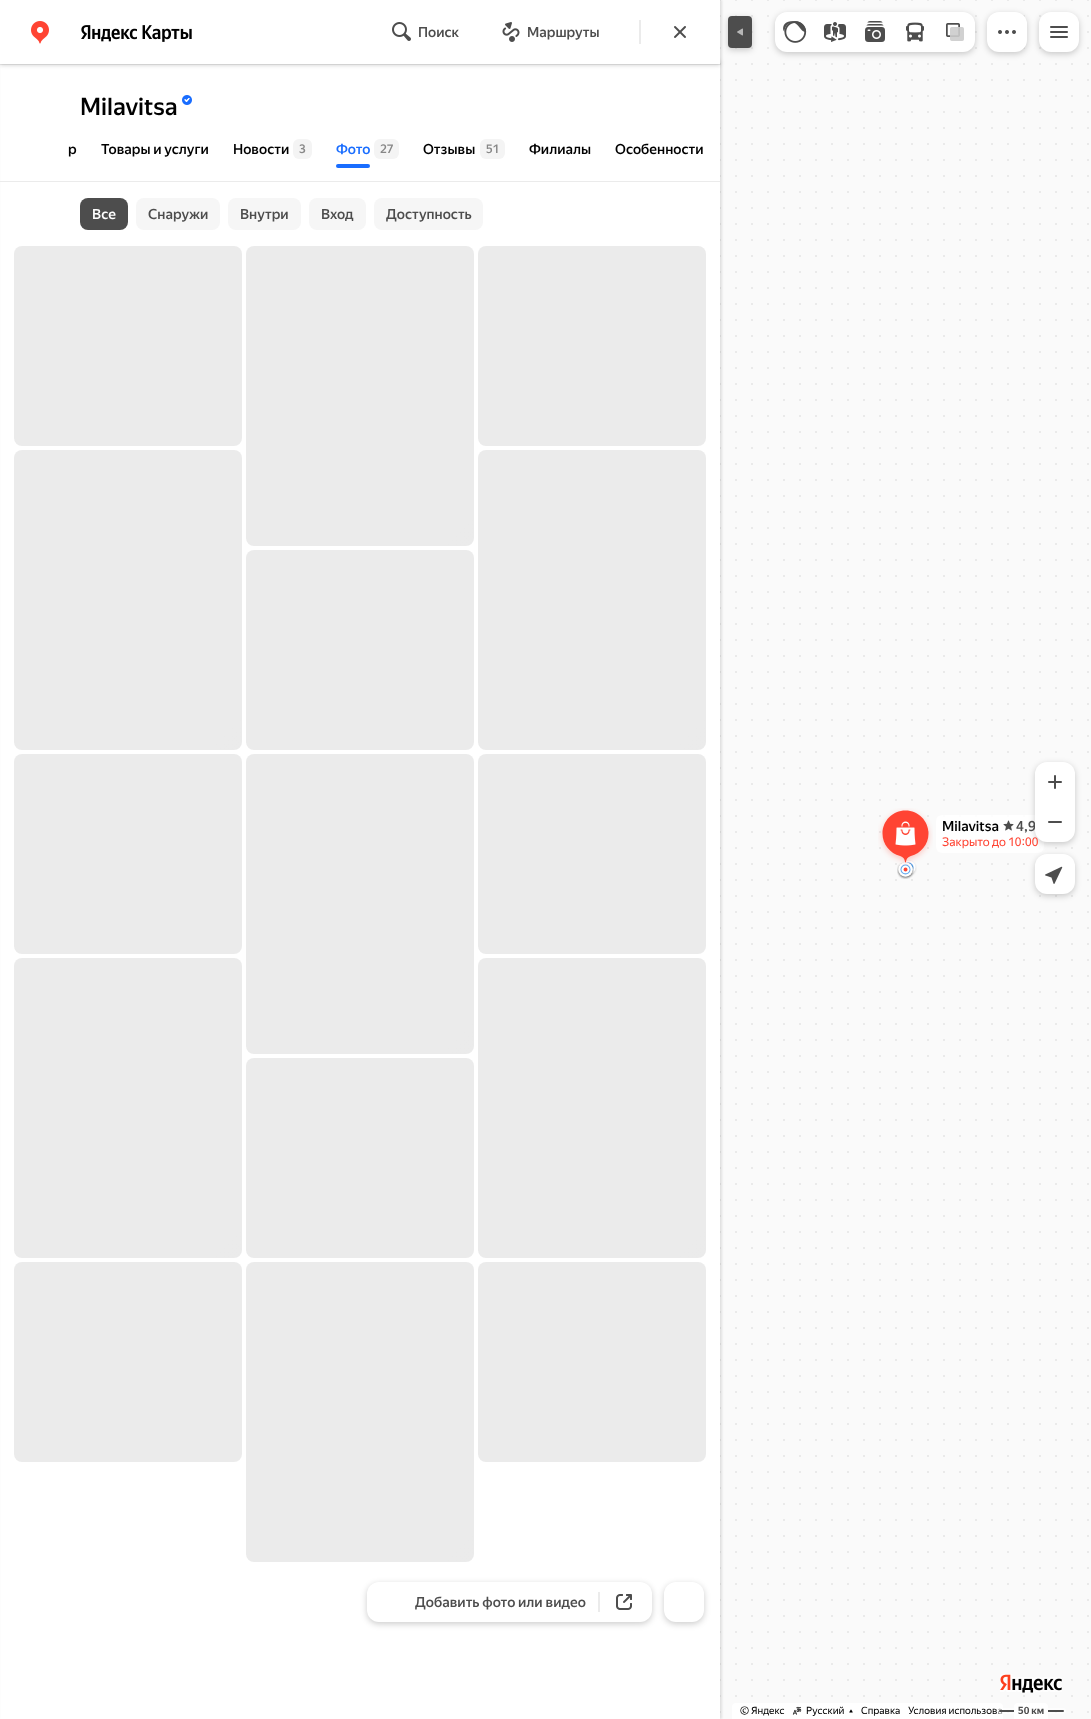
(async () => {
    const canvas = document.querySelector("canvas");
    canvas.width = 1091;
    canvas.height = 1719;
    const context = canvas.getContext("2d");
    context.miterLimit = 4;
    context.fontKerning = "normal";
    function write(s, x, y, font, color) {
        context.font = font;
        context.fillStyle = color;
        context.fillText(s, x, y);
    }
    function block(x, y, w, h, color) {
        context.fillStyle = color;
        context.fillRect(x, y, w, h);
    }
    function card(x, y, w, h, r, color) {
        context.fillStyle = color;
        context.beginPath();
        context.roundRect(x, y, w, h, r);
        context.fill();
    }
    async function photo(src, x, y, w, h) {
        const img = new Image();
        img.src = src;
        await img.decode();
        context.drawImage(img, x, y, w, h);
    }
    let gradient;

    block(0, 0, 1091, 1719, "rgb(255, 255, 255)");
    await photo("media/1.png", 720, 0, 371, 1719);
    context.fillStyle = "rgba(0, 0, 0, 0.1)";
    context.filter = "blur(1px)";
    context.beginPath();
    context.rect(2, 0, 720, 1719);
    context.fill();
    context.filter = "none";
    block(1, 65, 719, 1654, "rgb(255, 255, 255)");
    block(0, 64, 720, 1, "rgb(235, 235, 235)");
    context.fillStyle = "rgba(0, 0, 0, 0.2)";
    context.filter = "blur(2px)";
    context.beginPath();
    context.rect(0, 61, 720, 4);
    context.fill();
    context.filter = "none";
    context.filter = "blur(3px)";
    context.beginPath();
    context.roundRect(728, 18, 24, 32, 4);
    context.fill();
    context.filter = "none";
    block(0, 0, 720, 64, "rgb(255, 255, 255)");
    await photo("media/2.png", 31, 21, 18, 23);
    await photo("media/3.png", 81, 25, 111, 17);
    await photo("media/4.png", 392, 22, 19, 19);
    write("Поиск", 418, 37, "500 14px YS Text", "rgb(77, 77, 77)");
    await photo("media/5.png", 502, 22, 18, 20);
    write("Маршруты", 527, 37, "500 14px YS Text", "rgb(77, 77, 77)");
    block(639, 20, 2, 24, "rgb(235, 235, 235)");
    await photo("media/6.png", 674, 26, 12, 12);
    write("Milavitsa", 80, 115, "500 24px YS Text", "rgb(0, 0, 0)");
    await photo("media/7.png", 182, 95, 10, 10);
    write("р", 68, 154, "500 14px YS Text", "rgb(0, 0, 0)");
    write("Товары и услуги", 101, 154, "500 14px YS Text", "rgb(0, 0, 0)");
    write("Новости", 233, 154, "500 14px YS Text", "rgb(0, 0, 0)");
    card(293, 139, 19, 20, 6, "rgb(244, 244, 244)");
    write("3", 299, 153, "500 12px YS Text", "rgb(135, 135, 135)");
    write("Фото", 336, 154, "500 14px YS Text", "rgb(25, 109, 255)");
    card(374, 139, 25, 20, 6, "rgb(244, 244, 244)");
    write("27", 380, 153, "500 12px YS Text", "rgb(135, 135, 135)");
    write("Отзывы", 423, 154, "500 14px YS Text", "rgb(0, 0, 0)");
    card(480, 139, 25, 20, 6, "rgb(244, 244, 244)");
    write("51", 486, 153, "500 12px YS Text", "rgb(135, 135, 135)");
    write("Филиалы", 529, 154, "500 14px YS Text", "rgb(0, 0, 0)");
    write("Особенности", 615, 154, "500 14px YS Text", "rgb(0, 0, 0)");
    card(336, 164, 34, 4, 2, "rgb(25, 109, 255)");
    block(0, 181, 720, 1, "rgb(235, 235, 235)");
    card(80, 198, 48, 32, 8, "rgb(77, 77, 77)");
    write("Все", 92, 219, "500 14px YS Text", "rgb(255, 255, 255)");
    card(136, 198, 84, 32, 8, "rgb(246, 246, 246)");
    write("Снаружи", 148, 219, "500 14px YS Text", "rgb(77, 77, 77)");
    card(228, 198, 73, 32, 8, "rgb(246, 246, 246)");
    write("Внутри", 240, 219, "500 14px YS Text", "rgb(77, 77, 77)");
    card(309, 198, 57, 32, 8, "rgb(246, 246, 246)");
    write("Вход", 321, 219, "500 14px YS Text", "rgb(77, 77, 77)");
    card(374, 198, 109, 32, 8, "rgb(246, 246, 246)");
    write("Доступность", 386, 219, "500 14px YS Text", "rgb(77, 77, 77)");
    gradient = context.createLinearGradient(-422, -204, 678, 896);
    gradient.addColorStop(0.6, "rgb(235, 235, 235)");
    gradient.addColorStop(0.78, "rgb(233, 233, 233)");
    gradient.addColorStop(0.86, "rgb(235, 235, 235)");
    context.fillStyle = gradient;
    context.beginPath();
    context.roundRect(14, 246, 228, 200, 8);
    context.fill();
    gradient = context.createLinearGradient(-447, 25, 703, 1175);
    gradient.addColorStop(0.6, "rgb(235, 235, 235)");
    gradient.addColorStop(0.78, "rgb(233, 233, 233)");
    gradient.addColorStop(0.86, "rgb(235, 235, 235)");
    context.fillStyle = gradient;
    context.beginPath();
    context.roundRect(14, 450, 228, 300, 8);
    context.fill();
    gradient = context.createLinearGradient(-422, 304, 678, 1404);
    gradient.addColorStop(0.6, "rgb(235, 235, 235)");
    gradient.addColorStop(0.78, "rgb(233, 233, 233)");
    gradient.addColorStop(0.86, "rgb(235, 235, 235)");
    context.fillStyle = gradient;
    context.beginPath();
    context.roundRect(14, 754, 228, 200, 8);
    context.fill();
    gradient = context.createLinearGradient(-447, 533, 703, 1683);
    gradient.addColorStop(0.6, "rgb(235, 235, 235)");
    gradient.addColorStop(0.78, "rgb(233, 233, 233)");
    gradient.addColorStop(0.86, "rgb(235, 235, 235)");
    context.fillStyle = gradient;
    context.beginPath();
    context.roundRect(14, 958, 228, 300, 8);
    context.fill();
    gradient = context.createLinearGradient(-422, 812, 678, 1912);
    gradient.addColorStop(0.6, "rgb(235, 235, 235)");
    gradient.addColorStop(0.78, "rgb(233, 233, 233)");
    gradient.addColorStop(0.86, "rgb(235, 235, 235)");
    context.fillStyle = gradient;
    context.beginPath();
    context.roundRect(14, 1262, 228, 200, 8);
    context.fill();
    gradient = context.createLinearGradient(-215, -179, 935, 971);
    gradient.addColorStop(0.6, "rgb(235, 235, 235)");
    gradient.addColorStop(0.78, "rgb(233, 233, 233)");
    gradient.addColorStop(0.86, "rgb(235, 235, 235)");
    context.fillStyle = gradient;
    context.beginPath();
    context.roundRect(246, 246, 228, 300, 8);
    context.fill();
    gradient = context.createLinearGradient(-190, 100, 910, 1200);
    gradient.addColorStop(0.6, "rgb(235, 235, 235)");
    gradient.addColorStop(0.78, "rgb(233, 233, 233)");
    gradient.addColorStop(0.86, "rgb(235, 235, 235)");
    context.fillStyle = gradient;
    context.beginPath();
    context.roundRect(246, 550, 228, 200, 8);
    context.fill();
    gradient = context.createLinearGradient(-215, 329, 935, 1479);
    gradient.addColorStop(0.6, "rgb(235, 235, 235)");
    gradient.addColorStop(0.78, "rgb(233, 233, 233)");
    gradient.addColorStop(0.86, "rgb(235, 235, 235)");
    context.fillStyle = gradient;
    context.beginPath();
    context.roundRect(246, 754, 228, 300, 8);
    context.fill();
    gradient = context.createLinearGradient(-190, 608, 910, 1708);
    gradient.addColorStop(0.6, "rgb(235, 235, 235)");
    gradient.addColorStop(0.78, "rgb(233, 233, 233)");
    gradient.addColorStop(0.86, "rgb(235, 235, 235)");
    context.fillStyle = gradient;
    context.beginPath();
    context.roundRect(246, 1058, 228, 200, 8);
    context.fill();
    gradient = context.createLinearGradient(-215, 837, 935, 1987);
    gradient.addColorStop(0.6, "rgb(235, 235, 235)");
    gradient.addColorStop(0.78, "rgb(233, 233, 233)");
    gradient.addColorStop(0.86, "rgb(235, 235, 235)");
    context.fillStyle = gradient;
    context.beginPath();
    context.roundRect(246, 1262, 228, 300, 8);
    context.fill();
    gradient = context.createLinearGradient(42, -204, 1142, 896);
    gradient.addColorStop(0.6, "rgb(235, 235, 235)");
    gradient.addColorStop(0.78, "rgb(233, 233, 233)");
    gradient.addColorStop(0.86, "rgb(235, 235, 235)");
    context.fillStyle = gradient;
    context.beginPath();
    context.roundRect(478, 246, 228, 200, 8);
    context.fill();
    gradient = context.createLinearGradient(17, 25, 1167, 1175);
    gradient.addColorStop(0.6, "rgb(235, 235, 235)");
    gradient.addColorStop(0.78, "rgb(233, 233, 233)");
    gradient.addColorStop(0.86, "rgb(235, 235, 235)");
    context.fillStyle = gradient;
    context.beginPath();
    context.roundRect(478, 450, 228, 300, 8);
    context.fill();
    gradient = context.createLinearGradient(42, 304, 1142, 1404);
    gradient.addColorStop(0.6, "rgb(235, 235, 235)");
    gradient.addColorStop(0.78, "rgb(233, 233, 233)");
    gradient.addColorStop(0.86, "rgb(235, 235, 235)");
    context.fillStyle = gradient;
    context.beginPath();
    context.roundRect(478, 754, 228, 200, 8);
    context.fill();
    gradient = context.createLinearGradient(17, 533, 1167, 1683);
    gradient.addColorStop(0.6, "rgb(235, 235, 235)");
    gradient.addColorStop(0.78, "rgb(233, 233, 233)");
    gradient.addColorStop(0.86, "rgb(235, 235, 235)");
    context.fillStyle = gradient;
    context.beginPath();
    context.roundRect(478, 958, 228, 300, 8);
    context.fill();
    gradient = context.createLinearGradient(42, 812, 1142, 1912);
    gradient.addColorStop(0.6, "rgb(235, 235, 235)");
    gradient.addColorStop(0.78, "rgb(233, 233, 233)");
    gradient.addColorStop(0.86, "rgb(235, 235, 235)");
    context.fillStyle = gradient;
    context.beginPath();
    context.roundRect(478, 1262, 228, 200, 8);
    context.fill();
    context.fillStyle = "rgba(0, 0, 0, 0.2)";
    context.filter = "blur(3px)";
    context.beginPath();
    context.roundRect(367, 1584, 285, 40, 12);
    context.fill();
    context.filter = "none";
    card(367, 1582, 285, 40, 12, "rgb(255, 255, 255)");
    write("Добавить фото или видео", 415, 1607, "500 14px YS Text", "rgb(77, 77, 77)");
    block(598, 1592, 2, 20, "rgb(235, 235, 235)");
    await photo("media/8.png", 616, 1594, 16, 16);
    context.fillStyle = "rgba(0, 0, 0, 0.2)";
    context.filter = "blur(3px)";
    context.beginPath();
    context.roundRect(664, 1584, 40, 40, 12);
    context.fill();
    context.filter = "none";
    card(664, 1582, 40, 40, 12, "rgb(255, 255, 255)");
    card(728, 16, 24, 32, 4, "rgb(77, 77, 77)");
    await photo("media/9.png", 737, 28, 6, 8);
    context.fillStyle = "rgba(0, 0, 0, 0.2)";
    context.filter = "blur(3px)";
    context.beginPath();
    context.roundRect(775, 14, 200, 40, 12);
    context.fill();
    context.filter = "none";
    context.fillStyle = "rgb(255, 255, 255)";
    context.beginPath();
    context.roundRect(775, 12, 40, 40, [12, 0, 0, 12]);
    context.fill();
    await photo("media/10.png", 783, 21, 24, 22);
    block(815, 12, 120, 40, "rgb(255, 255, 255)");
    await photo("media/11.png", 824, 22, 22, 20);
    context.beginPath();
    context.roundRect(935, 12, 40, 40, [0, 12, 12, 0]);
    context.fill();
    await photo("media/12.png", 946, 23, 18, 18);
    await photo("media/13.png", 865, 21, 20, 21);
    await photo("media/14.png", 906, 22, 18, 20);
    context.fillStyle = "rgba(0, 0, 0, 0.2)";
    context.filter = "blur(3px)";
    context.beginPath();
    context.roundRect(987, 14, 40, 40, 12);
    context.fill();
    context.filter = "none";
    card(987, 12, 40, 40, 12, "rgb(255, 255, 255)");
    await photo("media/15.png", 998, 30, 18, 4);
    context.fillStyle = "rgba(0, 0, 0, 0.2)";
    context.filter = "blur(3px)";
    context.beginPath();
    context.roundRect(1039, 14, 40, 40, 12);
    context.fill();
    context.filter = "none";
    card(1039, 12, 40, 40, 12, "rgb(255, 255, 255)");
    await photo("media/16.png", 1050, 26, 18, 12);
    card(936, 815, 108, 38, 6, "rgba(255, 255, 255, 0.9)");
    context.fillStyle = "rgba(0, 0, 0, 0.2)";
    context.filter = "blur(3px)";
    context.beginPath();
    context.roundRect(1035, 764, 40, 80, 12);
    context.fill();
    context.filter = "none";
    context.fillStyle = "rgb(255, 255, 255)";
    context.beginPath();
    context.roundRect(1035, 762, 40, 40, [12, 12, 0, 0]);
    context.fill();
    await photo("media/17.png", 1048, 775, 14, 14);
    write("4,9", 1016, 831, "500 14px YS Text", "rgb(77, 77, 77)");
    write("Закрыто до 10:00", 942, 846, "12px YS Text", "rgb(255, 68, 51)");
    context.fillStyle = "rgb(255, 255, 255)";
    context.beginPath();
    context.roundRect(1035, 802, 40, 40, [0, 0, 12, 12]);
    context.fill();
    await photo("media/18.png", 1048, 821, 14, 2);
    context.fillStyle = "rgba(0, 0, 0, 0.2)";
    context.filter = "blur(3px)";
    context.beginPath();
    context.roundRect(1035, 856, 40, 40, 12);
    context.fill();
    context.filter = "none";
    card(1035, 854, 40, 40, 12, "rgb(255, 255, 255)");
    await photo("media/19.png", 1045, 866, 18, 18);
    await photo("media/20.png", 1000, 1674, 62, 19);
    context.beginPath();
    context.roundRect(732, 1703, 271, 16, [4, 4, 0, 0]);
    context.fill();
    write("© Яндекс", 740, 1714, "10px YS Text", "rgb(0, 0, 0)");
    await photo("media/21.png", 792, 1706, 10, 9);
    write("Русский", 806, 1714, "10px YS Text", "rgb(0, 0, 0)");
    await photo("media/22.png", 849, 1709, 4, 4);
    write("Справка", 861, 1714, "10px YS Text", "rgb(0, 0, 0)");
    write("Условия использова", 908, 1714, "10px YS Text", "rgb(0, 0, 0)");
    card(997, 1708, 69, 6, 3, "rgba(255, 255, 255, 0.6)");
    card(999, 1710, 65, 2, 1, "rgb(77, 77, 77)");
    context.fillStyle = "rgb(255, 255, 255)";
    context.beginPath();
    context.roundRect(1014, 1703, 34, 16, [4, 4, 0, 0]);
    context.fill();
    write("50 км", 1018, 1714, "bold 10px YS Text", "rgb(77, 77, 77)");
    await photo("media/26.png", 901, 860, 16, 17);
    await photo("media/27.png", 897, 862, 17, 17);
    await photo("media/28.png", 897, 863, 17, 16);
    await photo("media/29.png", 897, 863, 17, 16);
    await photo("media/30.png", 897, 863, 17, 16);
    await photo("media/23.png", 878, 808, 55, 66);
    await photo("media/24.png", 895, 821, 21, 25);
    write("Milavitsa", 942, 831, "500 14px YS Text", "rgb(0, 0, 0)");
    await photo("media/25.png", 1003, 820, 11, 11);
})();
